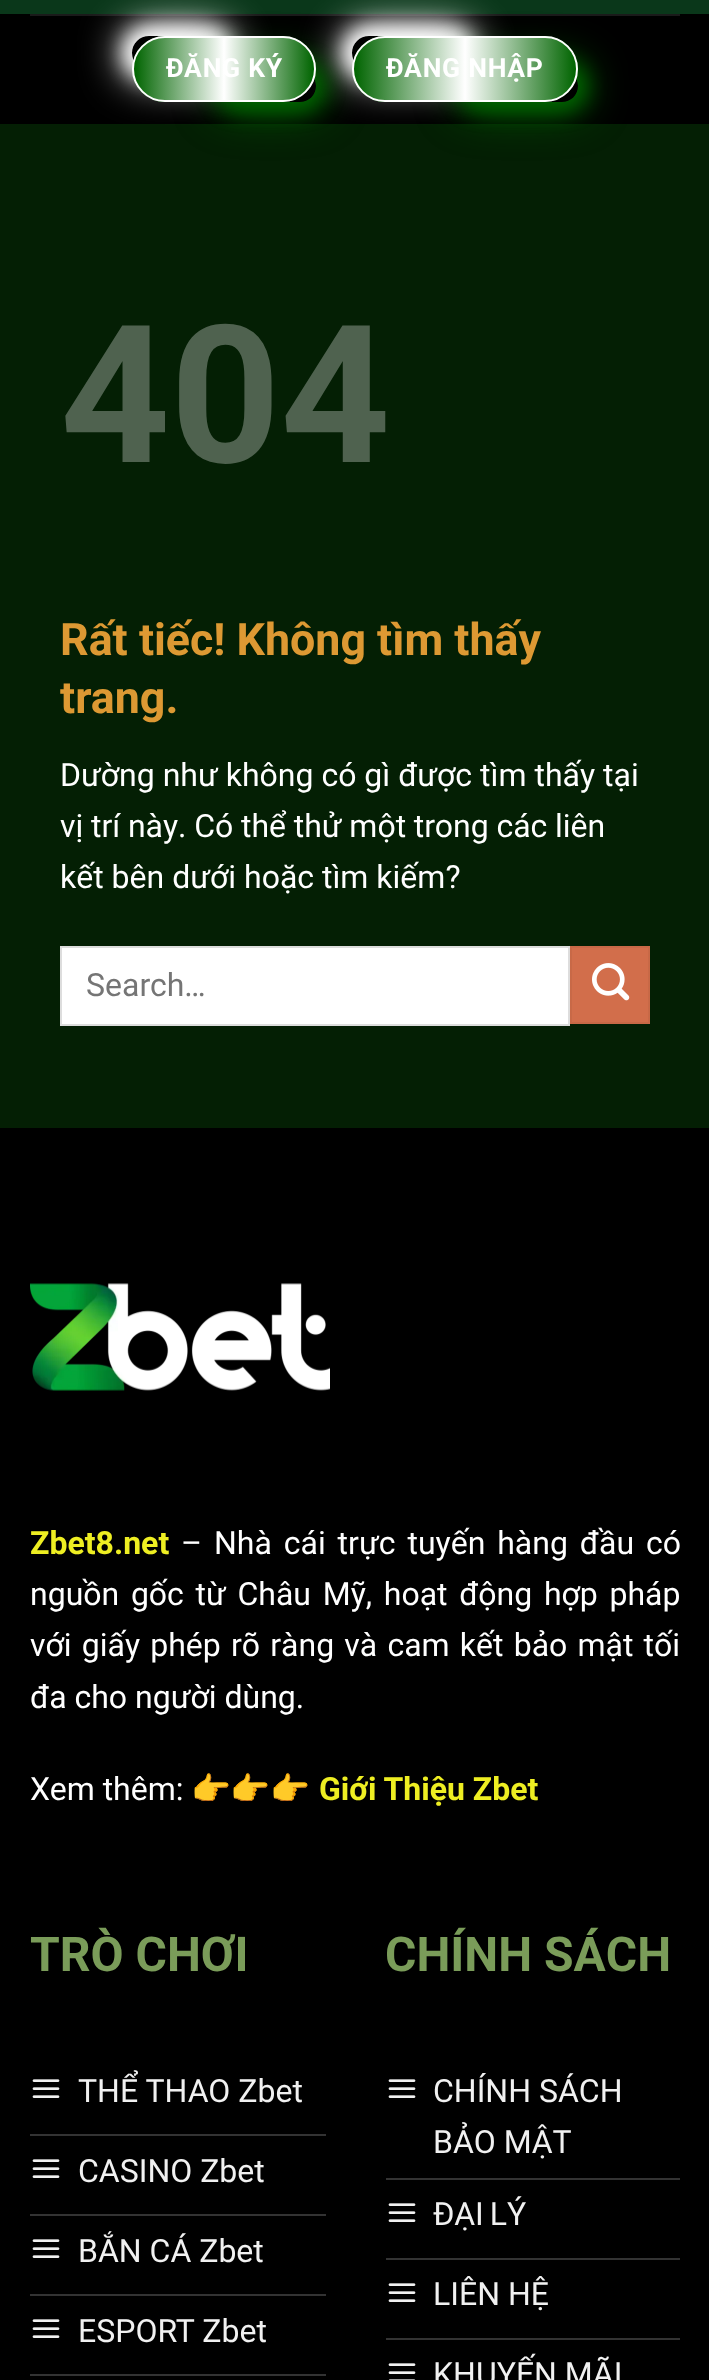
(async () => {
    const canvas = document.querySelector("canvas");
    canvas.width = 709;
    canvas.height = 2380;
    const context = canvas.getContext("2d");
    context.miterLimit = 4;
    context.fontKerning = "normal";
    function write(s, x, y, font, color) {
        context.font = font;
        context.fillStyle = color;
        context.fillText(s, x, y);
    }
    function block(x, y, w, h, color) {
        context.fillStyle = color;
        context.fillRect(x, y, w, h);
    }
    async function photo(src, x, y, w, h) {
        const img = new Image();
        img.src = src;
        await img.decode();
        context.drawImage(img, x, y, w, h);
    }
    let gradient;

    block(0, 0, 709, 2380, "rgb(4, 31, 4)");
    block(0, 0, 709, 14, "rgb(10, 55, 26)");
    block(0, 14, 709, 110, "rgb(0, 0, 0)");
    context.save();
    context.beginPath();
    context.moveTo(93, 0);
    context.lineTo(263, 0);
    context.lineTo(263, 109);
    context.lineTo(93, 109);
    context.closePath();
    context.moveTo(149, 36);
    context.lineTo(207, 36);
    context.bezierCurveTo(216.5, 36, 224, 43.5, 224, 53);
    context.bezierCurveTo(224, 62.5, 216.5, 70, 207, 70);
    context.lineTo(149, 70);
    context.bezierCurveTo(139.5, 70, 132, 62.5, 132, 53);
    context.bezierCurveTo(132, 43.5, 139.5, 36, 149, 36);
    context.closePath();
    context.clip("evenodd");
    context.fillStyle = "rgb(255, 255, 255)";
    context.filter = "blur(10px)";
    context.beginPath();
    context.roundRect(124, 28, 108, 50, 25);
    context.fill();
    context.filter = "none";
    context.restore();
    context.save();
    context.beginPath();
    context.moveTo(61, 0);
    context.lineTo(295, 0);
    context.lineTo(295, 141);
    context.lineTo(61, 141);
    context.closePath();
    context.moveTo(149, 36);
    context.lineTo(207, 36);
    context.bezierCurveTo(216.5, 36, 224, 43.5, 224, 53);
    context.bezierCurveTo(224, 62.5, 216.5, 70, 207, 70);
    context.lineTo(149, 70);
    context.bezierCurveTo(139.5, 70, 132, 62.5, 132, 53);
    context.bezierCurveTo(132, 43.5, 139.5, 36, 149, 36);
    context.closePath();
    context.clip("evenodd");
    context.fillStyle = "rgb(255, 255, 255)";
    context.filter = "blur(20px)";
    context.beginPath();
    context.roundRect(122, 26, 112, 54, 27);
    context.fill();
    context.filter = "none";
    context.restore();
    context.save();
    context.beginPath();
    context.moveTo(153, 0);
    context.lineTo(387, 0);
    context.lineTo(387, 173);
    context.lineTo(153, 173);
    context.closePath();
    context.moveTo(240, 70);
    context.lineTo(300, 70);
    context.bezierCurveTo(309, 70, 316, 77, 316, 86);
    context.bezierCurveTo(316, 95, 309, 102, 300, 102);
    context.lineTo(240, 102);
    context.bezierCurveTo(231, 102, 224, 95, 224, 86);
    context.bezierCurveTo(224, 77, 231, 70, 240, 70);
    context.closePath();
    context.clip("evenodd");
    context.fillStyle = "rgb(0, 100, 0)";
    context.filter = "blur(20px)";
    context.beginPath();
    context.roundRect(214, 60, 112, 52, 26);
    context.fill();
    context.filter = "none";
    context.restore();
    context.save();
    context.beginPath();
    context.moveTo(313, 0);
    context.lineTo(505, 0);
    context.lineTo(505, 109);
    context.lineTo(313, 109);
    context.closePath();
    context.moveTo(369, 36);
    context.lineTo(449, 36);
    context.bezierCurveTo(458.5, 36, 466, 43.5, 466, 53);
    context.bezierCurveTo(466, 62.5, 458.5, 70, 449, 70);
    context.lineTo(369, 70);
    context.bezierCurveTo(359.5, 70, 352, 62.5, 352, 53);
    context.bezierCurveTo(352, 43.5, 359.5, 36, 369, 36);
    context.closePath();
    context.clip("evenodd");
    context.fillStyle = "rgb(255, 255, 255)";
    context.filter = "blur(10px)";
    context.beginPath();
    context.roundRect(344, 28, 130, 50, 25);
    context.fill();
    context.filter = "none";
    context.restore();
    context.save();
    context.beginPath();
    context.moveTo(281, 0);
    context.lineTo(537, 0);
    context.lineTo(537, 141);
    context.lineTo(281, 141);
    context.closePath();
    context.moveTo(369, 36);
    context.lineTo(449, 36);
    context.bezierCurveTo(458.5, 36, 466, 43.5, 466, 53);
    context.bezierCurveTo(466, 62.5, 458.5, 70, 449, 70);
    context.lineTo(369, 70);
    context.bezierCurveTo(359.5, 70, 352, 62.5, 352, 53);
    context.bezierCurveTo(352, 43.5, 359.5, 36, 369, 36);
    context.closePath();
    context.clip("evenodd");
    context.fillStyle = "rgb(255, 255, 255)";
    context.filter = "blur(20px)";
    context.beginPath();
    context.roundRect(342, 26, 134, 54, 27);
    context.fill();
    context.filter = "none";
    context.restore();
    context.save();
    context.beginPath();
    context.moveTo(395, 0);
    context.lineTo(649, 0);
    context.lineTo(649, 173);
    context.lineTo(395, 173);
    context.closePath();
    context.moveTo(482, 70);
    context.lineTo(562, 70);
    context.bezierCurveTo(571, 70, 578, 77, 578, 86);
    context.bezierCurveTo(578, 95, 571, 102, 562, 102);
    context.lineTo(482, 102);
    context.bezierCurveTo(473, 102, 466, 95, 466, 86);
    context.bezierCurveTo(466, 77, 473, 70, 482, 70);
    context.closePath();
    context.clip("evenodd");
    context.fillStyle = "rgb(0, 100, 0)";
    context.filter = "blur(20px)";
    context.beginPath();
    context.roundRect(456, 60, 132, 52, 26);
    context.fill();
    context.filter = "none";
    context.restore();
    block(30, 14, 650, 2, "rgba(255, 255, 255, 0.1)");
    context.save();
    context.beginPath();
    context.moveTo(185, 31);
    context.lineTo(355, 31);
    context.lineTo(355, 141);
    context.lineTo(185, 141);
    context.closePath();
    context.moveTo(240, 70);
    context.lineTo(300, 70);
    context.bezierCurveTo(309, 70, 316, 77, 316, 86);
    context.bezierCurveTo(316, 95, 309, 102, 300, 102);
    context.lineTo(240, 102);
    context.bezierCurveTo(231, 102, 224, 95, 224, 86);
    context.bezierCurveTo(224, 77, 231, 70, 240, 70);
    context.closePath();
    context.clip("evenodd");
    context.fillStyle = "rgb(0, 100, 0)";
    context.filter = "blur(10px)";
    context.beginPath();
    context.roundRect(216, 62, 108, 48, 24);
    context.fill();
    context.filter = "none";
    context.restore();
    context.save();
    context.beginPath();
    context.roundRect(132, 36, 184, 66, 33);
    context.clip();
    gradient = context.createLinearGradient(134, 69, 494, 69);
    gradient.addColorStop(0, "rgb(0, 100, 0)");
    gradient.addColorStop(0.25, "rgb(255, 255, 255)");
    gradient.addColorStop(0.5, "rgb(0, 100, 0)");
    gradient.addColorStop(0.75, "rgb(255, 255, 255)");
    gradient.addColorStop(1, "rgb(0, 100, 0)");
    context.fillStyle = gradient;
    context.beginPath();
    context.roundRect(134, 36, 182, 66, [0, 33, 33, 0]);
    context.fill();
    context.restore();
    context.beginPath();
    context.roundRect(133, 37, 182, 64, 32);
    context.strokeStyle = "rgb(255, 255, 255)";
    context.lineWidth = 2;
    context.stroke();
    context.letterSpacing = "0.75px";
    write("ĐĂNG KÝ", 166, 77, "bold 26.5px Roboto", "rgb(255, 255, 255)");
    context.save();
    context.beginPath();
    context.moveTo(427, 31);
    context.lineTo(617, 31);
    context.lineTo(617, 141);
    context.lineTo(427, 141);
    context.closePath();
    context.moveTo(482, 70);
    context.lineTo(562, 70);
    context.bezierCurveTo(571, 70, 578, 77, 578, 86);
    context.bezierCurveTo(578, 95, 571, 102, 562, 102);
    context.lineTo(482, 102);
    context.bezierCurveTo(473, 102, 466, 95, 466, 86);
    context.bezierCurveTo(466, 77, 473, 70, 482, 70);
    context.closePath();
    context.clip("evenodd");
    context.fillStyle = "rgb(0, 100, 0)";
    context.filter = "blur(10px)";
    context.beginPath();
    context.roundRect(458, 62, 128, 48, 24);
    context.fill();
    context.filter = "none";
    context.restore();
    context.save();
    context.beginPath();
    context.roundRect(352, 36, 226, 66, 33);
    context.clip();
    gradient = context.createLinearGradient(354, 69, 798, 69);
    gradient.addColorStop(0, "rgb(0, 100, 0)");
    gradient.addColorStop(0.25, "rgb(255, 255, 255)");
    gradient.addColorStop(0.5, "rgb(0, 100, 0)");
    gradient.addColorStop(0.75, "rgb(255, 255, 255)");
    gradient.addColorStop(1, "rgb(0, 100, 0)");
    context.fillStyle = gradient;
    context.beginPath();
    context.roundRect(354, 36, 224, 66, [0, 33, 33, 0]);
    context.fill();
    context.restore();
    context.beginPath();
    context.roundRect(353, 37, 224, 64, 32);
    context.stroke();
    write("ĐĂNG NHẬP", 386, 77, "bold 26.5px Roboto", "rgb(255, 255, 255)");
    context.letterSpacing = "0px";
    write("404", 60, 462, "bold 192px Roboto", "rgb(79, 98, 79)");
    write("Rất tiếc! Không tìm thấy", 60, 655, "bold 44.75px Roboto", "rgb(221, 153, 51)");
    write("trang.", 60, 713, "bold 44.75px Roboto", "rgb(221, 153, 51)");
    write("Dường như không có gì được tìm thấy tại", 60, 786, "32px Roboto", "rgb(255, 255, 255)");
    context.wordSpacing = "-0.25px";
    write("vị trí này. Có thể thử một trong các liên", 60, 837, "32px Roboto", "rgb(255, 255, 255)");
    context.wordSpacing = "0px";
    write("kết bên dưới hoặc tìm kiếm?", 60, 888, "32px Roboto", "rgb(255, 255, 255)");
    context.beginPath();
    context.rect(61, 947, 508, 78);
    context.fill();
    context.strokeStyle = "rgb(221, 221, 221)";
    context.stroke();
    write("Search…", 86, 996, "32px Roboto", "rgb(117, 117, 117)");
    context.fillStyle = "rgb(210, 110, 75)";
    context.beginPath();
    context.rect(571, 947, 78, 76);
    context.fill();
    context.strokeStyle = "rgb(200, 105, 71)";
    context.stroke();
    await photo("media/1.png", 592, 963, 38, 38);
    block(0, 1128, 709, 1252, "rgb(0, 0, 0)");
    await photo("media/2.png", 30, 1283, 300, 108);
    write("Zbet8.net", 30, 1554, "bold 32px Roboto", "rgb(238, 238, 34)");
    context.wordSpacing = "4px";
    write("– Nhà cái trực tuyến hàng đầu có", 181, 1554, "32px Roboto", "rgb(255, 255, 255)");
    context.wordSpacing = "3.75px";
    write("nguồn gốc từ Châu Mỹ, hoạt động hợp pháp", 30, 1605, "32px Roboto", "rgb(255, 255, 255)");
    context.wordSpacing = "2.25px";
    write("với giấy phép rõ ràng và cam kết bảo mật tối", 30, 1656, "32px Roboto", "rgb(255, 255, 255)");
    context.wordSpacing = "0px";
    write("đa cho người dùng.", 30, 1708, "32px Roboto", "rgb(255, 255, 255)");
    write("Xem thêm:", 30, 1800, "32px Roboto", "rgb(255, 255, 255)");
    write("👉👉👉", 191, 1800, "32px Noto Color Emoji", "rgb(255, 255, 255)");
    write("Giới Thiệu Zbet", 319, 1800, "bold 32px Roboto", "rgb(238, 238, 34)");
    write("TRÒ CHƠI", 30, 1971, "bold 48px Roboto", "rgb(122, 156, 89)");
    block(30, 2134, 296, 2, "rgb(51, 51, 51)");
    await photo("media/3.png", 32, 2079, 28, 19);
    write("THỂ THAO Zbet", 78, 2102, "32px Roboto", "rgb(241, 241, 241)");
    block(30, 2214, 296, 2, "rgb(51, 51, 51)");
    await photo("media/3.png", 32, 2159, 28, 19);
    write("CASINO Zbet", 78, 2182, "32px Roboto", "rgb(241, 241, 241)");
    block(30, 2294, 296, 2, "rgb(51, 51, 51)");
    await photo("media/3.png", 32, 2239, 28, 19);
    write("BẮN CÁ Zbet", 78, 2262, "32px Roboto", "rgb(241, 241, 241)");
    block(30, 2374, 296, 2, "rgb(51, 51, 51)");
    await photo("media/3.png", 32, 2319, 28, 19);
    write("ESPORT Zbet", 78, 2342, "32px Roboto", "rgb(241, 241, 241)");
    write("CHÍNH SÁCH", 385, 1971, "bold 48px Roboto", "rgb(122, 156, 89)");
    block(386, 2178, 294, 2, "rgb(51, 51, 51)");
    await photo("media/3.png", 388, 2079, 28, 19);
    write("CHÍNH SÁCH", 433, 2102, "32px Roboto", "rgb(241, 241, 241)");
    write("BẢO MẬT", 433, 2153, "32px Roboto", "rgb(241, 241, 241)");
    block(386, 2258, 294, 2, "rgb(51, 51, 51)");
    await photo("media/3.png", 388, 2203, 28, 19);
    context.wordSpacing = "-2px";
    write("ĐẠI LÝ", 433, 2225, "32px Roboto", "rgb(241, 241, 241)");
    block(386, 2338, 294, 2, "rgb(51, 51, 51)");
    await photo("media/3.png", 388, 2283, 28, 19);
    context.wordSpacing = "0px";
    write("LIÊN HỆ", 433, 2305, "32px Roboto", "rgb(241, 241, 241)");
    await photo("media/4.png", 388, 2363, 28, 17);
    write("KHUYẾN MÃI", 433, 2385, "32px Roboto", "rgb(241, 241, 241)");
})();
